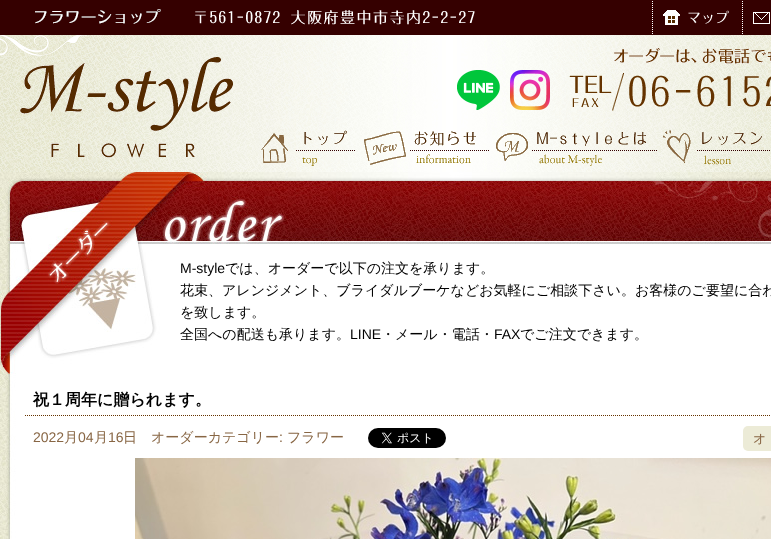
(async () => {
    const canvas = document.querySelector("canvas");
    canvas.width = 771;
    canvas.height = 539;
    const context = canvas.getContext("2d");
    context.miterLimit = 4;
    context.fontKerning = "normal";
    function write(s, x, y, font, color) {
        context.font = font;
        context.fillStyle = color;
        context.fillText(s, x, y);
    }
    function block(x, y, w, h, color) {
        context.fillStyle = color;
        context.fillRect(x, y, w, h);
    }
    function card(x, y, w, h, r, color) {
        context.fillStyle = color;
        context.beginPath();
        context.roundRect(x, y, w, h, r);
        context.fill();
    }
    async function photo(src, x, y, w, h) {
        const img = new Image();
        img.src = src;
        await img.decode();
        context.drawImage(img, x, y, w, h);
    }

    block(0, 0, 771, 539, "rgb(255, 255, 255)");
    await photo("media/1.png", 0, 35, 771, 137);
    block(0, 0, 771, 35, "rgb(53, 0, 0)");
    await photo("media/2.png", 35, 9, 126, 15);
    await photo("media/3.png", 195, 10, 280, 15);
    await photo("media/4.png", 652, 1, 77, 33);
    await photo("media/5.png", 742, 1, 28, 33);
    await photo("media/6.png", 20, 57, 213, 101);
    await photo("media/7.png", 457, 70, 43, 40);
    await photo("media/8.png", 510, 70, 40, 40);
    await photo("media/9.png", 614, 48, 157, 16);
    await photo("media/10.png", 569, 73, 202, 38);
    await photo("media/11.png", 261, 130, 94, 36);
    await photo("media/12.png", 364, 131, 125, 34);
    await photo("media/13.png", 496, 132, 161, 34);
    await photo("media/14.png", 663, 130, 107, 35);
    await photo("media/15.png", 0, 35, 87, 21);
    await photo("media/16.png", 0, 374, 771, 165);
    await photo("media/17.png", 0, 172, 771, 202);
    write("M-style", 180, 273, "14px Liberation Sans", "rgb(0, 0, 0)");
    write("では、オーダーで以下の注文を承ります。", 225, 273, "500 14px WenQuanYi Zen Hei", "rgb(0, 0, 0)");
    write("花束、アレンジメント、ブライダルブーケなどお気軽にご相談下さい。お客様のご要望に合わ", 180, 295, "500 14px WenQuanYi Zen Hei", "rgb(0, 0, 0)");
    write("を致します。", 180, 317, "500 14px WenQuanYi Zen Hei", "rgb(0, 0, 0)");
    write("全国への配送も承ります。", 180, 339, "500 14px WenQuanYi Zen Hei", "rgb(0, 0, 0)");
    write("LINE", 350, 339, "14px Liberation Sans", "rgb(0, 0, 0)");
    write("・メール・電話・", 381, 339, "500 14px WenQuanYi Zen Hei", "rgb(0, 0, 0)");
    write("FAX", 494, 339, "14px Liberation Sans", "rgb(0, 0, 0)");
    write("でご注文できます。", 520, 339, "500 14px WenQuanYi Zen Hei", "rgb(0, 0, 0)");
    await photo("media/18.png", 25, 415, 745, 1);
    write("祝１周年に贈られます。", 33, 405, "bold 16px WenQuanYi Zen Hei", "rgb(0, 0, 0)");
    write("2022", 33, 442, "14px Liberation Sans", "rgb(136, 102, 68)");
    write("月", 64, 442, "500 14px WenQuanYi Zen Hei", "rgb(136, 102, 68)");
    write("04", 78, 442, "14px Liberation Sans", "rgb(136, 102, 68)");
    write("月", 94, 442, "500 14px WenQuanYi Zen Hei", "rgb(136, 102, 68)");
    write("16", 108, 442, "14px Liberation Sans", "rgb(136, 102, 68)");
    write("日", 123, 442, "500 14px WenQuanYi Zen Hei", "rgb(136, 102, 68)");
    write("オーダーカテゴリー", 151, 442, "500 14px WenQuanYi Zen Hei", "rgb(136, 102, 68)");
    write(":", 279, 442, "14px Liberation Sans", "rgb(136, 102, 68)");
    write("フラワー", 287, 442, "500 14px WenQuanYi Zen Hei", "rgb(136, 102, 68)");
    await photo("media/19.png", 368, 428, 78, 20);
    card(743, 426, 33, 25, 5, "rgb(236, 235, 215)");
    write("オ", 753, 443, "500 13px WenQuanYi Zen Hei", "rgb(136, 102, 68)");
    await photo("media/20.png", 135, 458, 636, 81);
})();
